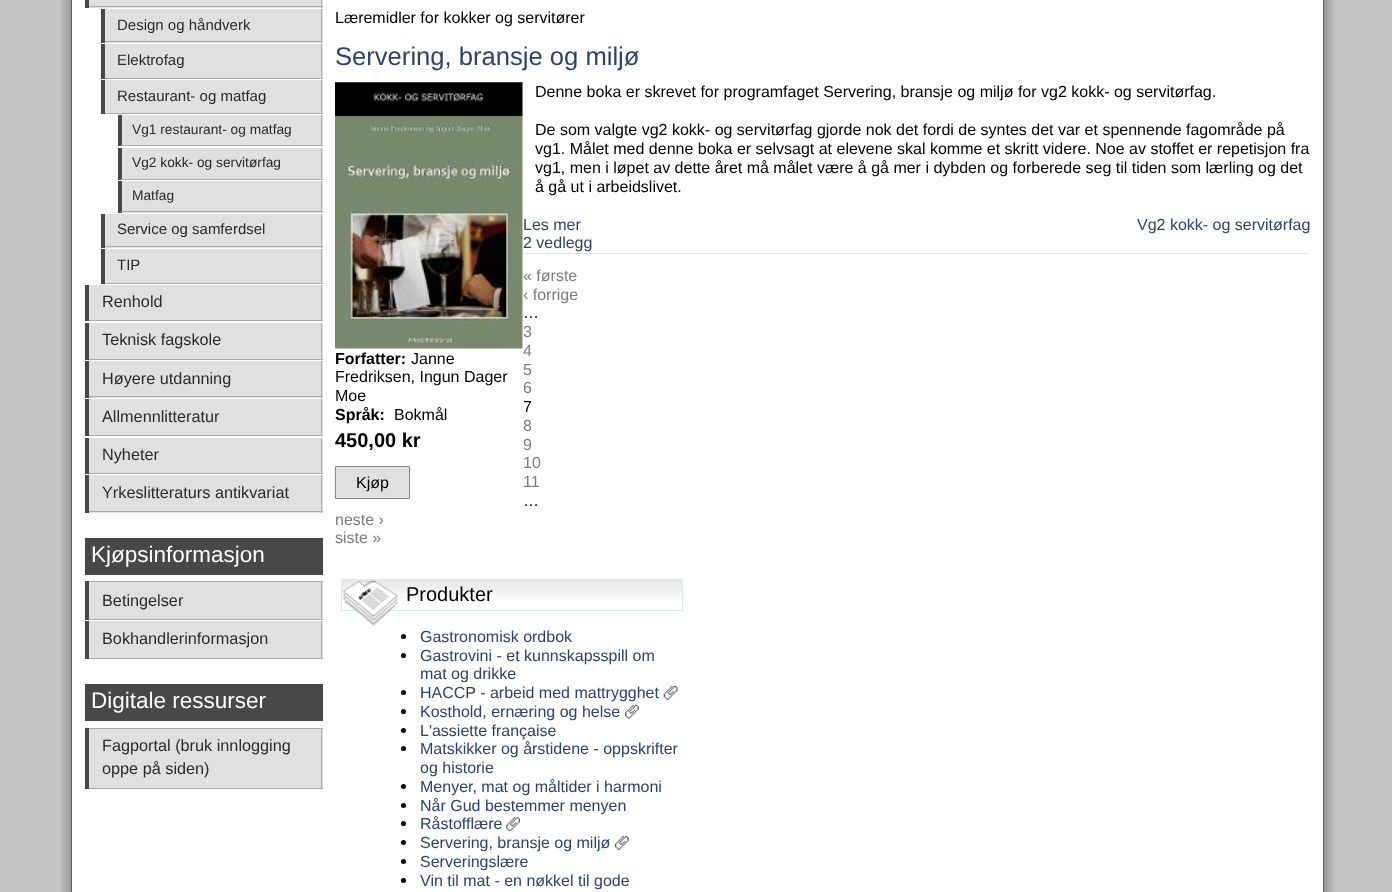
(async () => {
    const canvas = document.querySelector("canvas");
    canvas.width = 1392;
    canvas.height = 892;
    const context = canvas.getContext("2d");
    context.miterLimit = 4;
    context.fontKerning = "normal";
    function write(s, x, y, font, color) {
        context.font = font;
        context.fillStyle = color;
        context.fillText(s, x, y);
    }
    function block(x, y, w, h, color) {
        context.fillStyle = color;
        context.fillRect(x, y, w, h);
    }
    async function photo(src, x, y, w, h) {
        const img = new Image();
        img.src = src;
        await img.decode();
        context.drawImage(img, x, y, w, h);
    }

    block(0, 0, 1392, 892, "rgb(196, 196, 196)");
    await photo("media/1.png", 61, 0, 1273, 892);
    context.fillStyle = "rgb(255, 255, 255)";
    context.beginPath();
    context.rect(71.5, -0.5, 1252, 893);
    context.fill();
    context.strokeStyle = "rgb(2, 122, 198)";
    context.stroke();
    block(89, 0, 234, 8, "rgb(224, 224, 224)");
    block(85, 0, 4, 8, "rgb(70, 72, 73)");
    block(321, 0, 1, 8, "rgb(171, 171, 171)");
    block(89, 6, 234, 1, "rgb(171, 171, 171)");
    block(105, 9, 218, 34, "rgb(224, 224, 224)");
    block(101, 9, 4, 34, "rgb(70, 72, 73)");
    block(321, 9, 1, 34, "rgb(171, 171, 171)");
    block(105, 41, 218, 1, "rgb(171, 171, 171)");
    write("Design og håndverk", 117, 30, "15px Liberation Sans", "rgb(42, 42, 42)");
    block(105, 44, 218, 34, "rgb(224, 224, 224)");
    block(101, 44, 4, 35, "rgb(70, 72, 73)");
    block(321, 44, 1, 35, "rgb(171, 171, 171)");
    block(105, 78, 218, 1, "rgb(171, 171, 171)");
    write("Elektrofag", 117, 65, "15px Liberation Sans", "rgb(42, 42, 42)");
    block(105, 80, 218, 33, "rgb(224, 224, 224)");
    block(101, 80, 4, 34, "rgb(70, 72, 73)");
    block(321, 80, 1, 34, "rgb(171, 171, 171)");
    block(105, 113, 218, 1, "rgb(171, 171, 171)");
    write("Restaurant- og matfag", 117, 101, "15px Liberation Sans", "rgb(42, 42, 42)");
    block(122, 115, 201, 30, "rgb(224, 224, 224)");
    block(118, 115, 4, 31, "rgb(70, 72, 73)");
    block(321, 115, 1, 31, "rgb(171, 171, 171)");
    block(121, 145, 202, 1, "rgb(171, 171, 171)");
    write("Vg1 restaurant- og matfag", 132, 134, "13.75px Liberation Sans", "rgb(42, 42, 42)");
    block(122, 148, 201, 31, "rgb(224, 224, 224)");
    block(118, 148, 4, 32, "rgb(70, 72, 73)");
    block(321, 148, 1, 32, "rgb(171, 171, 171)");
    block(121, 179, 202, 1, "rgb(171, 171, 171)");
    write("Vg2 kokk- og servitørfag", 132, 167, "13.75px Liberation Sans", "rgb(42, 42, 42)");
    block(122, 181, 201, 32, "rgb(224, 224, 224)");
    block(118, 181, 4, 32, "rgb(70, 72, 73)");
    block(321, 181, 1, 32, "rgb(171, 171, 171)");
    block(121, 211, 202, 1, "rgb(171, 171, 171)");
    write("Matfag", 132, 200, "13.75px Liberation Sans", "rgb(42, 42, 42)");
    block(105, 214, 218, 34, "rgb(224, 224, 224)");
    block(101, 214, 4, 34, "rgb(70, 72, 73)");
    block(321, 214, 1, 34, "rgb(171, 171, 171)");
    block(105, 246, 218, 1, "rgb(171, 171, 171)");
    write("Service og samferdsel", 117, 234, "15px Liberation Sans", "rgb(42, 42, 42)");
    block(105, 249, 218, 34, "rgb(224, 224, 224)");
    block(101, 249, 4, 35, "rgb(70, 72, 73)");
    block(321, 249, 1, 35, "rgb(171, 171, 171)");
    block(105, 283, 218, 1, "rgb(171, 171, 171)");
    write("TIP", 117, 270, "15px Liberation Sans", "rgb(42, 42, 42)");
    block(89, 285, 234, 35, "rgb(224, 224, 224)");
    block(85, 285, 4, 36, "rgb(70, 72, 73)");
    block(321, 285, 1, 36, "rgb(171, 171, 171)");
    block(89, 320, 234, 1, "rgb(171, 171, 171)");
    write("Renhold", 102, 307, "16.25px Liberation Sans", "rgb(42, 42, 42)");
    block(89, 323, 234, 36, "rgb(224, 224, 224)");
    block(85, 323, 4, 37, "rgb(70, 72, 73)");
    block(321, 323, 1, 37, "rgb(171, 171, 171)");
    block(89, 359, 234, 1, "rgb(171, 171, 171)");
    write("Teknisk fagskole", 102, 345, "16.25px Liberation Sans", "rgb(42, 42, 42)");
    block(89, 361, 234, 37, "rgb(224, 224, 224)");
    block(85, 361, 4, 37, "rgb(70, 72, 73)");
    block(321, 361, 1, 37, "rgb(171, 171, 171)");
    block(89, 396, 234, 1, "rgb(171, 171, 171)");
    write("Høyere utdanning", 102, 384, "16.25px Liberation Sans", "rgb(42, 42, 42)");
    block(89, 399, 234, 36, "rgb(224, 224, 224)");
    block(85, 399, 4, 37, "rgb(70, 72, 73)");
    block(321, 399, 1, 37, "rgb(171, 171, 171)");
    block(89, 435, 234, 1, "rgb(171, 171, 171)");
    write("Allmennlitteratur", 102, 422, "16.25px Liberation Sans", "rgb(42, 42, 42)");
    block(89, 438, 234, 35, "rgb(224, 224, 224)");
    block(85, 438, 4, 36, "rgb(70, 72, 73)");
    block(321, 438, 1, 36, "rgb(171, 171, 171)");
    block(89, 473, 234, 1, "rgb(171, 171, 171)");
    write("Nyheter", 102, 460, "16.25px Liberation Sans", "rgb(42, 42, 42)");
    block(89, 475, 234, 38, "rgb(224, 224, 224)");
    block(85, 475, 4, 38, "rgb(70, 72, 73)");
    block(321, 475, 1, 38, "rgb(171, 171, 171)");
    block(89, 511, 234, 1, "rgb(171, 171, 171)");
    write("Yrkeslitteraturs antikvariat", 102, 498, "16.25px Liberation Sans", "rgb(42, 42, 42)");
    block(85, 538, 238, 37, "rgb(70, 72, 73)");
    write("Kjøpsinformasjon", 91, 562, "22.5px Liberation Sans", "rgb(255, 255, 255)");
    block(89, 582, 234, 37, "rgb(224, 224, 224)");
    block(85, 581, 4, 39, "rgb(70, 72, 73)");
    block(89, 581, 234, 1, "rgb(171, 171, 171)");
    block(321, 581, 1, 39, "rgb(171, 171, 171)");
    block(89, 619, 234, 1, "rgb(171, 171, 171)");
    write("Betingelser", 102, 606, "16.25px Liberation Sans", "rgb(42, 42, 42)");
    block(89, 621, 234, 37, "rgb(224, 224, 224)");
    block(85, 621, 4, 38, "rgb(70, 72, 73)");
    block(321, 621, 1, 38, "rgb(171, 171, 171)");
    block(89, 658, 234, 1, "rgb(171, 171, 171)");
    write("Bokhandlerinformasjon", 102, 644, "16.25px Liberation Sans", "rgb(42, 42, 42)");
    block(85, 684, 238, 37, "rgb(70, 72, 73)");
    write("Digitale ressurser", 91, 708, "22.5px Liberation Sans", "rgb(255, 255, 255)");
    block(89, 729, 234, 59, "rgb(224, 224, 224)");
    block(85, 728, 4, 61, "rgb(70, 72, 73)");
    block(89, 728, 234, 1, "rgb(171, 171, 171)");
    block(321, 728, 1, 61, "rgb(171, 171, 171)");
    block(89, 788, 234, 1, "rgb(171, 171, 171)");
    write("Fagportal (bruk innlogging", 102, 751, "16.25px Liberation Sans", "rgb(42, 42, 42)");
    write("oppe på siden)", 102, 774, "16.25px Liberation Sans", "rgb(42, 42, 42)");
    write("Læremidler for kokker og servitører", 335, 23, "16px Liberation Sans", "rgb(0, 0, 0)");
    block(522, 253, 788, 1, "rgb(226, 226, 226)");
    write("Servering, bransje og miljø", 335, 65, "25.6px Liberation Sans", "rgb(47, 65, 111)");
    write("Denne boka er skrevet for programfaget Servering, bransje og miljø for vg2 kokk- og servitørfag.", 535, 97, "16px Liberation Sans", "rgb(0, 0, 0)");
    write("De som valgte vg2 kokk- og servitørfag gjorde nok det fordi de syntes det var et spennende fagområde på", 535, 135, "16px Liberation Sans", "rgb(0, 0, 0)");
    write("vg1. Målet med denne boka er selvsagt at elevene skal komme et skritt videre. Noe av stoffet er repetisjon fra", 535, 154, "16px Liberation Sans", "rgb(0, 0, 0)");
    write("vg1, men i løpet av dette året må målet være å gå mer i dybden og forberede seg til tiden som lærling og det", 535, 173, "16px Liberation Sans", "rgb(0, 0, 0)");
    write("å gå ut i arbeidslivet.", 535, 192, "16px Liberation Sans", "rgb(0, 0, 0)");
    await photo("media/2.png", 335, 82, 188, 267);
    write("Forfatter:", 335, 364, "bold 16px Liberation Sans", "rgb(0, 0, 0)");
    write("Janne", 411, 364, "16px Liberation Sans", "rgb(0, 0, 0)");
    write("Fredriksen, Ingun Dager", 335, 382, "16px Liberation Sans", "rgb(0, 0, 0)");
    write("Moe", 335, 401, "16px Liberation Sans", "rgb(0, 0, 0)");
    write("Språk:", 335, 420, "bold 16px Liberation Sans", "rgb(0, 0, 0)");
    write("Bokmål", 394, 420, "16px Liberation Sans", "rgb(0, 0, 0)");
    write("450,00 kr", 335, 447, "bold 20px Liberation Sans", "rgb(0, 0, 0)");
    context.fillStyle = "rgb(224, 224, 224)";
    context.beginPath();
    context.rect(335.5, 466.5, 74, 32);
    context.fill();
    context.strokeStyle = "rgb(135, 135, 135)";
    context.stroke();
    write("Kjøp", 356, 488, "16px Liberation Sans", "rgb(0, 0, 0)");
    write("Les mer", 523, 230, "16px Liberation Sans", "rgb(47, 65, 111)");
    write("2 vedlegg", 523, 248, "16px Liberation Sans", "rgb(47, 65, 111)");
    write("Vg2 kokk- og servitørfag", 1137, 230, "16px Liberation Sans", "rgb(47, 65, 111)");
    write("« første", 523, 281, "16px Liberation Sans", "rgb(124, 124, 124)");
    write("‹ forrige", 523, 300, "16px Liberation Sans", "rgb(124, 124, 124)");
    write("…", 523, 318, "16px Liberation Sans", "rgb(0, 0, 0)");
    write("3", 523, 337, "16px Liberation Sans", "rgb(124, 124, 124)");
    write("4", 523, 356, "16px Liberation Sans", "rgb(124, 124, 124)");
    write("5", 523, 375, "16px Liberation Sans", "rgb(124, 124, 124)");
    write("6", 523, 393, "16px Liberation Sans", "rgb(124, 124, 124)");
    write("7", 523, 412, "16px Liberation Sans", "rgb(0, 0, 0)");
    write("8", 523, 431, "16px Liberation Sans", "rgb(124, 124, 124)");
    write("9", 523, 450, "16px Liberation Sans", "rgb(124, 124, 124)");
    write("10", 523, 468, "16px Liberation Sans", "rgb(124, 124, 124)");
    write("11", 523, 487, "16px Liberation Sans", "rgb(124, 124, 124)");
    write("…", 523, 506, "16px Liberation Sans", "rgb(0, 0, 0)");
    write("neste ›", 335, 525, "16px Liberation Sans", "rgb(124, 124, 124)");
    write("siste »", 335, 543, "16px Liberation Sans", "rgb(124, 124, 124)");
    await photo("media/4.png", 342, 580, 340, 19);
    context.strokeStyle = "rgb(217, 234, 245)";
    context.strokeRect(341.5, 579.5, 341, 31);
    await photo("media/3.png", 342, 580, 56, 46);
    write("Produkter", 406, 601, "20px Liberation Sans", "rgb(0, 0, 0)");
    context.beginPath();
    context.arc(403.5, 636.5, 2.5, 0, Math.PI * 2);
    context.fill();
    write("Gastronomisk ordbok", 420, 642, "16px Liberation Sans", "rgb(47, 65, 111)");
    context.fillStyle = "rgb(0, 0, 0)";
    context.beginPath();
    context.arc(403.5, 655.5, 2.5, 0, Math.PI * 2);
    context.fill();
    write("Gastrovini - et kunnskapsspill om", 420, 661, "16px Liberation Sans", "rgb(47, 65, 111)");
    write("mat og drikke", 420, 679, "16px Liberation Sans", "rgb(47, 65, 111)");
    context.fillStyle = "rgb(0, 0, 0)";
    context.beginPath();
    context.arc(403.5, 692.5, 2.5, 0, Math.PI * 2);
    context.fill();
    write("HACCP - arbeid med mattrygghet", 420, 698, "16px Liberation Sans", "rgb(47, 65, 111)");
    await photo("media/5.png", 663, 686, 15, 14);
    context.fillStyle = "rgb(0, 0, 0)";
    context.beginPath();
    context.arc(403.5, 711.5, 2.5, 0, Math.PI * 2);
    context.fill();
    write("Kosthold, ernæring og helse", 420, 717, "16px Liberation Sans", "rgb(47, 65, 111)");
    await photo("media/6.png", 625, 704, 14, 15);
    context.fillStyle = "rgb(0, 0, 0)";
    context.beginPath();
    context.arc(403.5, 730.5, 2.5, 0, Math.PI * 2);
    context.fill();
    write("L'assiette française", 420, 736, "16px Liberation Sans", "rgb(47, 65, 111)");
    context.fillStyle = "rgb(0, 0, 0)";
    context.beginPath();
    context.arc(403.5, 748.5, 2.5, 0, Math.PI * 2);
    context.fill();
    write("Matskikker og årstidene - oppskrifter", 420, 754, "16px Liberation Sans", "rgb(47, 65, 111)");
    write("og historie", 420, 773, "16px Liberation Sans", "rgb(47, 65, 111)");
    context.fillStyle = "rgb(0, 0, 0)";
    context.beginPath();
    context.arc(403.5, 786.5, 2.5, 0, Math.PI * 2);
    context.fill();
    write("Menyer, mat og måltider i harmoni", 420, 792, "16px Liberation Sans", "rgb(47, 65, 111)");
    context.fillStyle = "rgb(0, 0, 0)";
    context.beginPath();
    context.arc(403.5, 805.5, 2.5, 0, Math.PI * 2);
    context.fill();
    write("Når Gud bestemmer menyen", 420, 811, "16px Liberation Sans", "rgb(47, 65, 111)");
    context.fillStyle = "rgb(0, 0, 0)";
    context.beginPath();
    context.arc(403.5, 823.5, 2.5, 0, Math.PI * 2);
    context.fill();
    write("Råstofflære", 420, 829, "16px Liberation Sans", "rgb(47, 65, 111)");
    await photo("media/7.png", 506, 817, 14, 14);
    context.fillStyle = "rgb(0, 0, 0)";
    context.beginPath();
    context.arc(403.5, 842.5, 2.5, 0, Math.PI * 2);
    context.fill();
    write("Servering, bransje og miljø", 420, 848, "16px Liberation Sans", "rgb(47, 65, 111)");
    await photo("media/8.png", 615, 836, 14, 14);
    context.fillStyle = "rgb(0, 0, 0)";
    context.beginPath();
    context.arc(403.5, 861.5, 2.5, 0, Math.PI * 2);
    context.fill();
    write("Serveringslære", 420, 867, "16px Liberation Sans", "rgb(47, 65, 111)");
    context.fillStyle = "rgb(0, 0, 0)";
    context.beginPath();
    context.arc(403.5, 880.5, 2.5, 0, Math.PI * 2);
    context.fill();
    write("Vin til mat - en nøkkel til gode", 420, 886, "16px Liberation Sans", "rgb(47, 65, 111)");
})();
